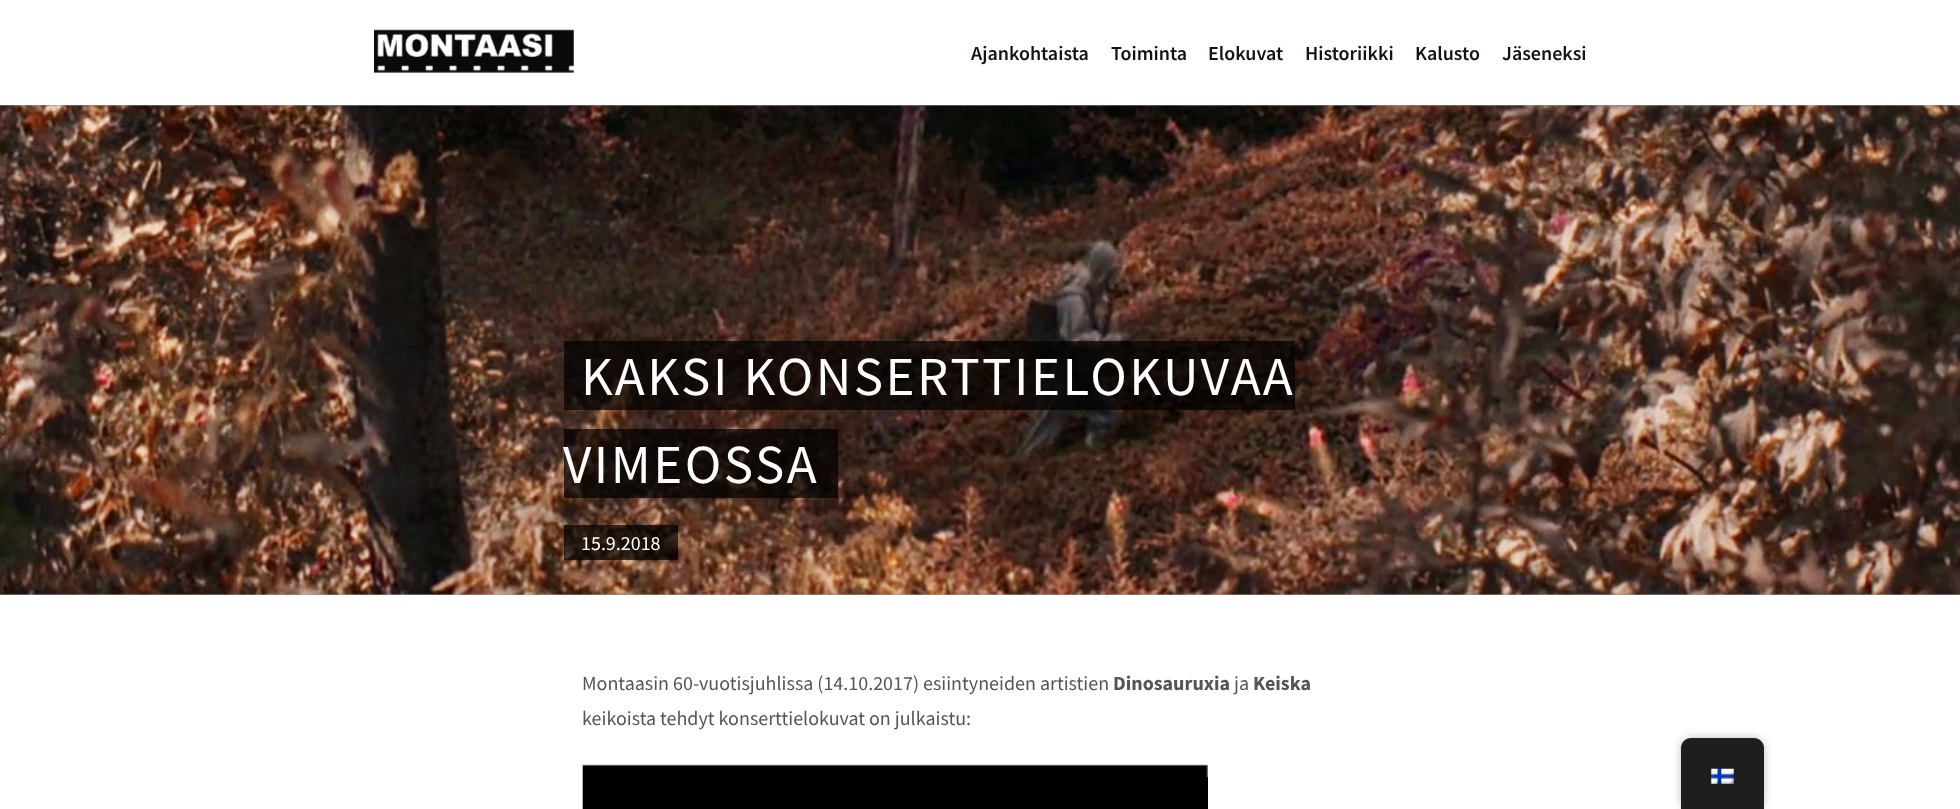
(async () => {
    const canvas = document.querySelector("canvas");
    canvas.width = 1960;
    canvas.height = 809;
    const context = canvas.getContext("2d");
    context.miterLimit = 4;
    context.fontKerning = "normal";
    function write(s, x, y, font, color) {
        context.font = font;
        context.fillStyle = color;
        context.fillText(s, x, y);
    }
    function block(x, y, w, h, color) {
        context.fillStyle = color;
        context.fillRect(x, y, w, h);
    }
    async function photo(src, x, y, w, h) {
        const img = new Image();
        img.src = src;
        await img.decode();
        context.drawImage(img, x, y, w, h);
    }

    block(0, 0, 1960, 809, "rgb(255, 255, 255)");
    await photo("media/1.png", 374, 29, 200, 44);
    write("Ajankohtaista", 971, 60, "600 20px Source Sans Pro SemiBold", "rgb(15, 20, 23)");
    write("Toiminta", 1111, 60, "600 20px Source Sans Pro SemiBold", "rgb(15, 20, 23)");
    write("Elokuvat", 1208, 60, "600 20px Source Sans Pro SemiBold", "rgb(15, 20, 23)");
    write("Historiikki", 1305, 60, "600 20px Source Sans Pro SemiBold", "rgb(15, 20, 23)");
    write("Kalusto", 1415, 60, "600 20px Source Sans Pro SemiBold", "rgb(15, 20, 23)");
    write("Jäseneksi", 1502, 60, "600 20px Source Sans Pro SemiBold", "rgb(15, 20, 23)");
    await photo("media/2.png", 0, 105, 1960, 490);
    block(0, 594, 1960, 1, "rgba(154, 154, 154, 0.5)");
    block(0, 105, 1960, 1, "rgba(154, 154, 154, 0.5)");
    block(564, 341, 731, 69, "rgba(0, 0, 0, 0.7)");
    context.letterSpacing = "2.5px";
    write("KAKSI KONSERTTIELOKUVAA", 581, 395, "55px Source Sans Pro", "rgb(255, 255, 255)");
    block(564, 429, 274, 69, "rgba(0, 0, 0, 0.7)");
    write("VIMEOSSA", 563, 483, "55px Source Sans Pro", "rgb(255, 255, 255)");
    block(564, 525, 114, 35, "rgba(0, 0, 0, 0.7)");
    context.letterSpacing = "0px";
    write("15.9.2018", 581, 550, "20px Source Sans Pro", "rgb(255, 255, 255)");
    write("Montaasin 60-vuotisjuhlissa (14.10.2017) esiintyneiden artistien", 582, 690, "20px Source Sans Pro", "rgb(85, 85, 85)");
    write("Dinosauruxia", 1113, 690, "bold 20px Source Sans Pro", "rgb(85, 85, 85)");
    write("ja", 1234, 690, "20px Source Sans Pro", "rgb(85, 85, 85)");
    write("Keiska", 1253, 690, "bold 20px Source Sans Pro", "rgb(85, 85, 85)");
    write("keikoista tehdyt konserttielokuvat on julkaistu:", 582, 725, "20px Source Sans Pro", "rgb(85, 85, 85)");
    await photo("media/3.png", 582, 764, 626, 45);
    context.fillStyle = "rgba(0, 0, 0, 0.25)";
    context.filter = "blur(5px)";
    context.beginPath();
    context.roundRect(1681, 738, 83, 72, 10);
    context.fill();
    context.filter = "none";
    context.fillStyle = "rgb(30, 30, 30)";
    context.beginPath();
    context.moveTo(1691, 738);
    context.lineTo(1754, 738);
    context.bezierCurveTo(1759.5, 738, 1764, 742.5, 1764, 748);
    context.lineTo(1764, 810);
    context.lineTo(1681, 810);
    context.lineTo(1681, 748);
    context.bezierCurveTo(1681, 742.5, 1685.5, 738, 1691, 738);
    context.closePath();
    context.fill();
    await photo("media/4.png", 1711, 768, 23, 16);
})();
